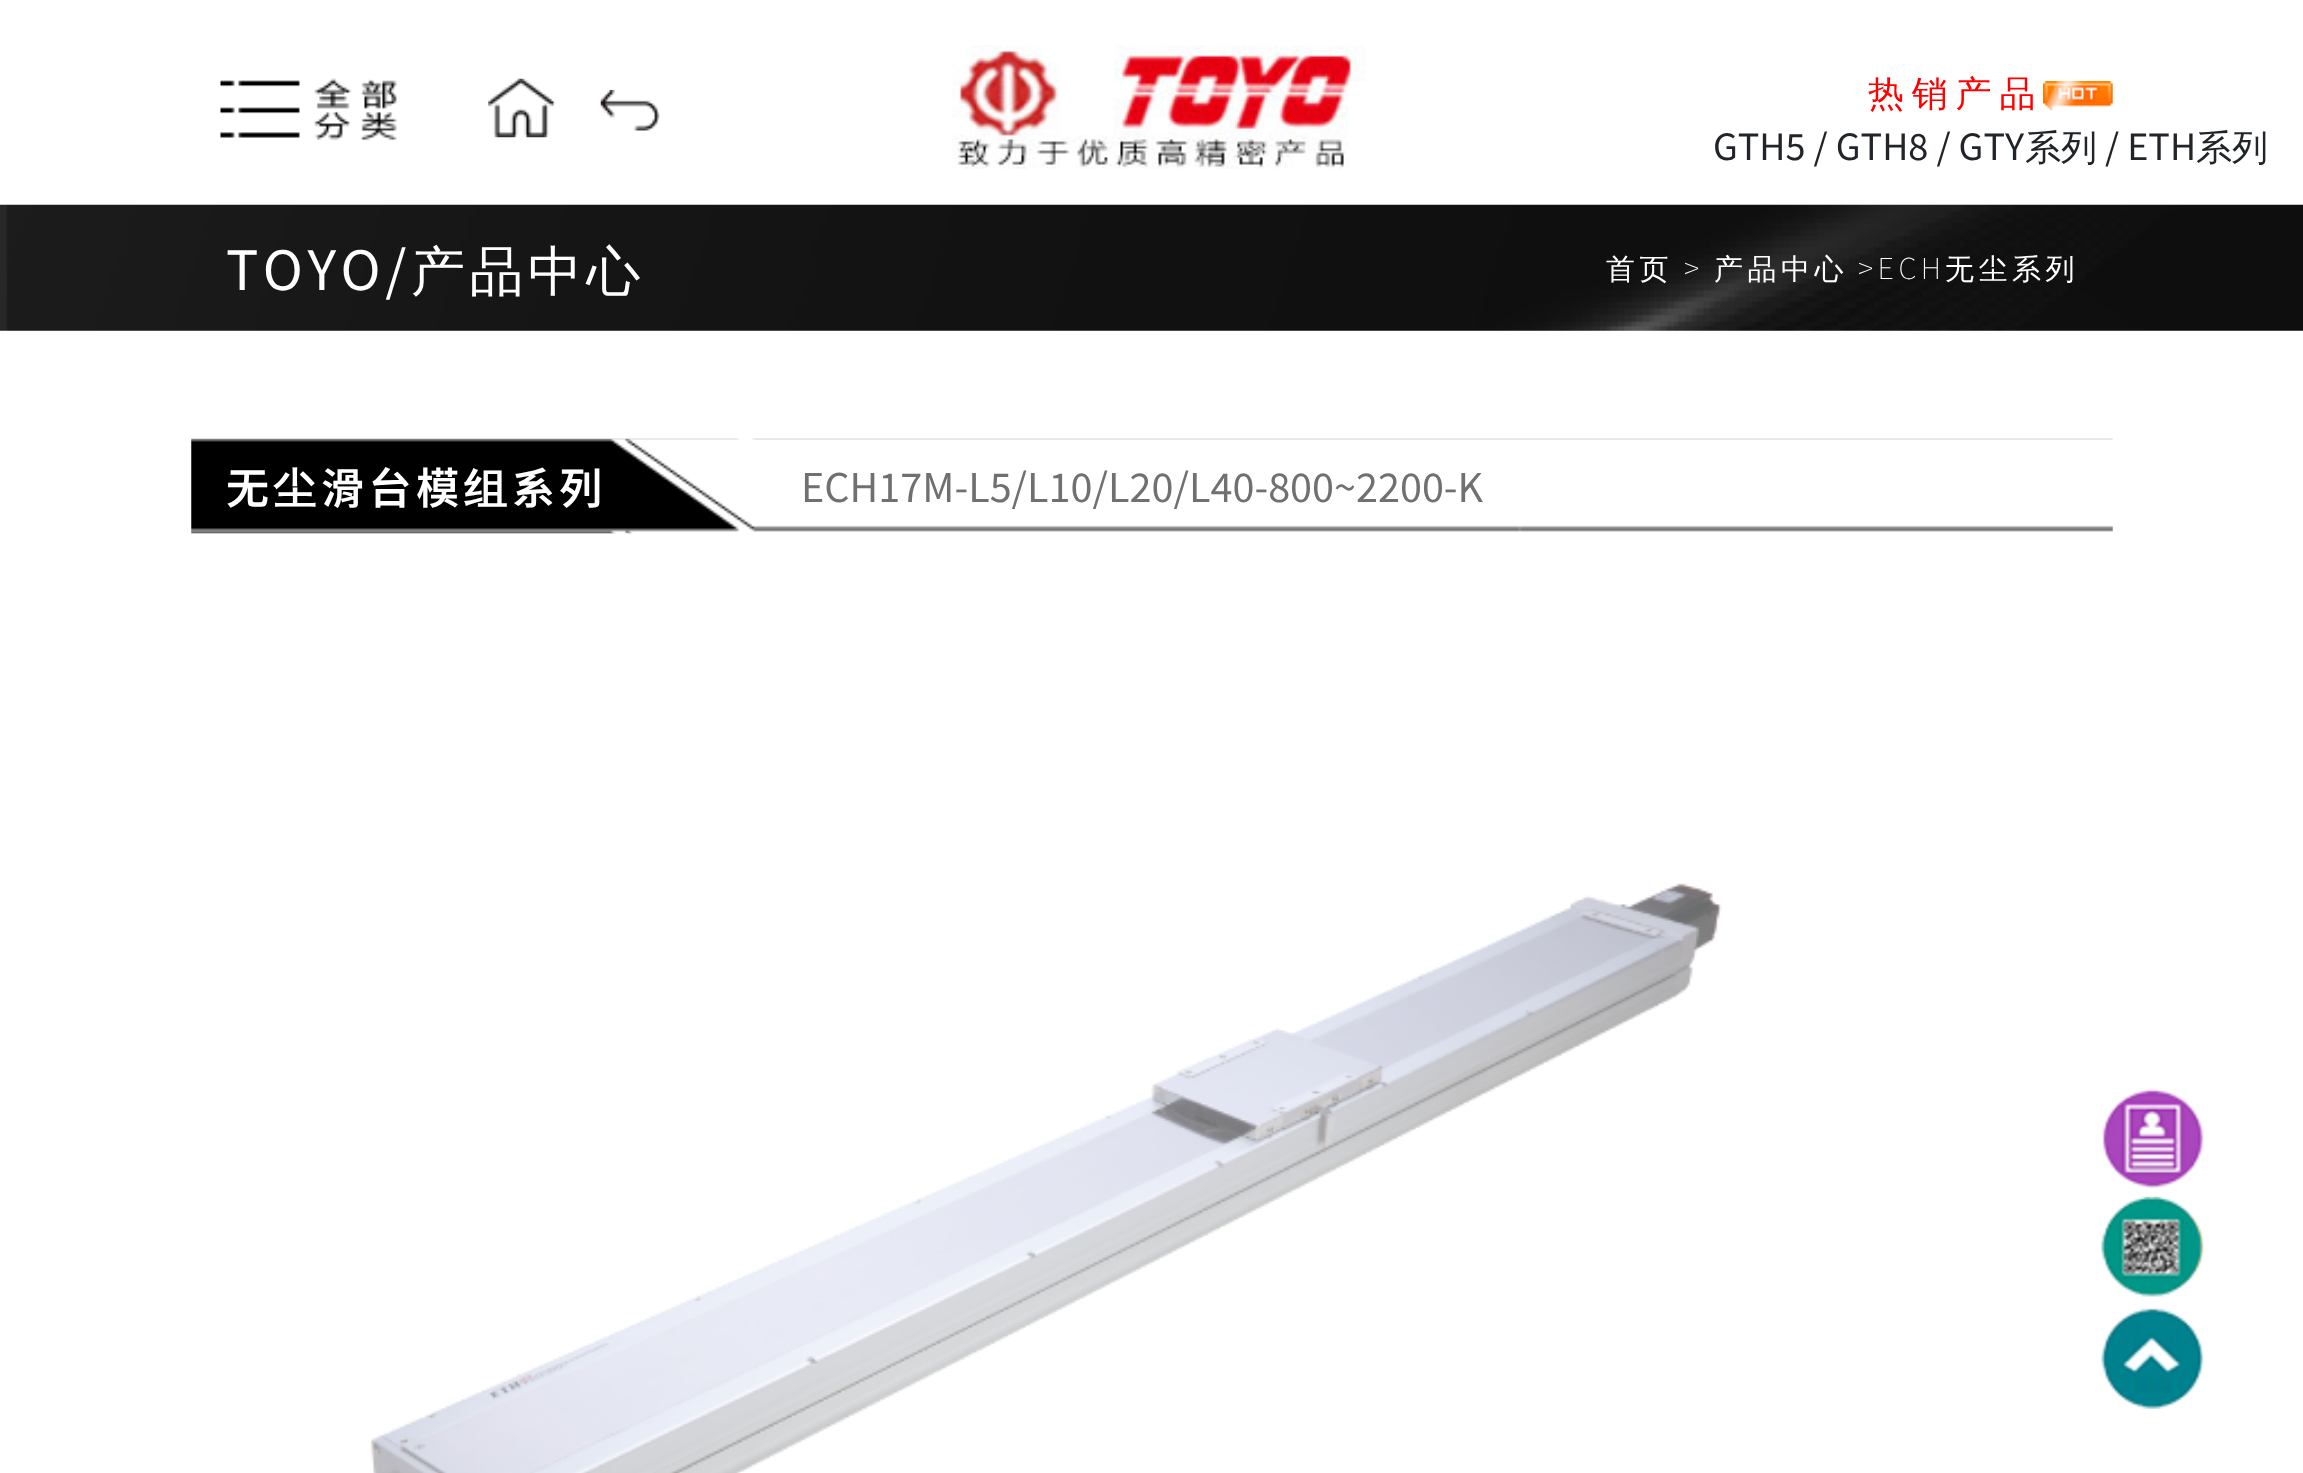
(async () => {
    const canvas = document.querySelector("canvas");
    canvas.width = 2303;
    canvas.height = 1473;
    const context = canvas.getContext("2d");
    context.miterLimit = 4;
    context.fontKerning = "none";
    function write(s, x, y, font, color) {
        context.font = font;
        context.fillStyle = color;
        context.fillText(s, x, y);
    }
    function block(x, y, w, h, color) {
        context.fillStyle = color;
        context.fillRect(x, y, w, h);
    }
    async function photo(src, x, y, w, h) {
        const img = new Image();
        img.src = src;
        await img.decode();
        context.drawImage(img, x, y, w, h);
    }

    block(0, 0, 2303, 1473, "rgb(255, 255, 255)");
    await photo("media/1.png", 220, 78, 177, 63);
    await photo("media/2.png", 488, 78, 68, 60);
    await photo("media/3.png", 600, 90, 60, 41);
    await photo("media/4.png", 951, 45, 415, 124);
    context.wordSpacing = "-3px";
    write("热 销 产 品", 1868, 106, "500 36px WenQuanYi Zen Hei", "rgb(255, 0, 0)");
    await photo("media/5.png", 2043, 81, 70, 30);
    context.wordSpacing = "0px";
    write("GTH5 / GTH8 / GTY", 1713, 160, "36px Noto Sans TC", "rgb(33, 37, 41)");
    write("系列", 2025, 160, "500 36px WenQuanYi Zen Hei", "rgb(33, 37, 41)");
    write("/ ETH", 2105, 160, "36px Noto Sans TC", "rgb(33, 37, 41)");
    write("系列", 2196, 160, "500 36px WenQuanYi Zen Hei", "rgb(33, 37, 41)");
    await photo("media/6.png", 0, 204, 2303, 127);
    context.letterSpacing = "4.5px";
    write("TOYO/", 226, 290, "54px Noto Sans TC", "rgb(255, 255, 255)");
    write("产品中心", 411, 290, "500 54px WenQuanYi Zen Hei", "rgb(255, 255, 255)");
    write("首页", 1606, 279, "500 29px WenQuanYi Zen Hei", "rgb(255, 255, 255)");
    write(">", 1684, 279, "100 29px Noto Sans TC", "rgb(255, 255, 255)");
    write("产品中心", 1714, 279, "500 29px WenQuanYi Zen Hei", "rgb(255, 255, 255)");
    write(">ECH", 1858, 279, "100 29px Noto Sans TC", "rgb(255, 255, 255)");
    write("无尘系列", 1945, 279, "500 29px WenQuanYi Zen Hei", "rgb(255, 255, 255)");
    await photo("media/7.png", 191, 438, 1922, 96);
    write("无", 226, 504, "600 43px Noto Sans TC", "rgb(255, 255, 255)");
    write("尘", 273, 504, "bold 43px WenQuanYi Zen Hei", "rgb(255, 255, 255)");
    write("滑台模", 321, 504, "600 43px Noto Sans TC", "rgb(255, 255, 255)");
    write("组", 464, 504, "bold 43px WenQuanYi Zen Hei", "rgb(255, 255, 255)");
    write("系列", 512, 504, "600 43px Noto Sans TC", "rgb(255, 255, 255)");
    context.letterSpacing = "0px";
    write("ECH17M-L5/L10/L20/L40-800~2200-K", 801, 502, "39.6px Noto Sans TC", "rgb(112, 112, 112)");
    await photo("media/8.png", 370, 883, 1352, 590);
    await photo("media/9.png", 2102, 1088, 102, 101);
    await photo("media/10.png", 2101, 1196, 103, 101);
    await photo("media/11.png", 2101, 1308, 103, 101);
})();
